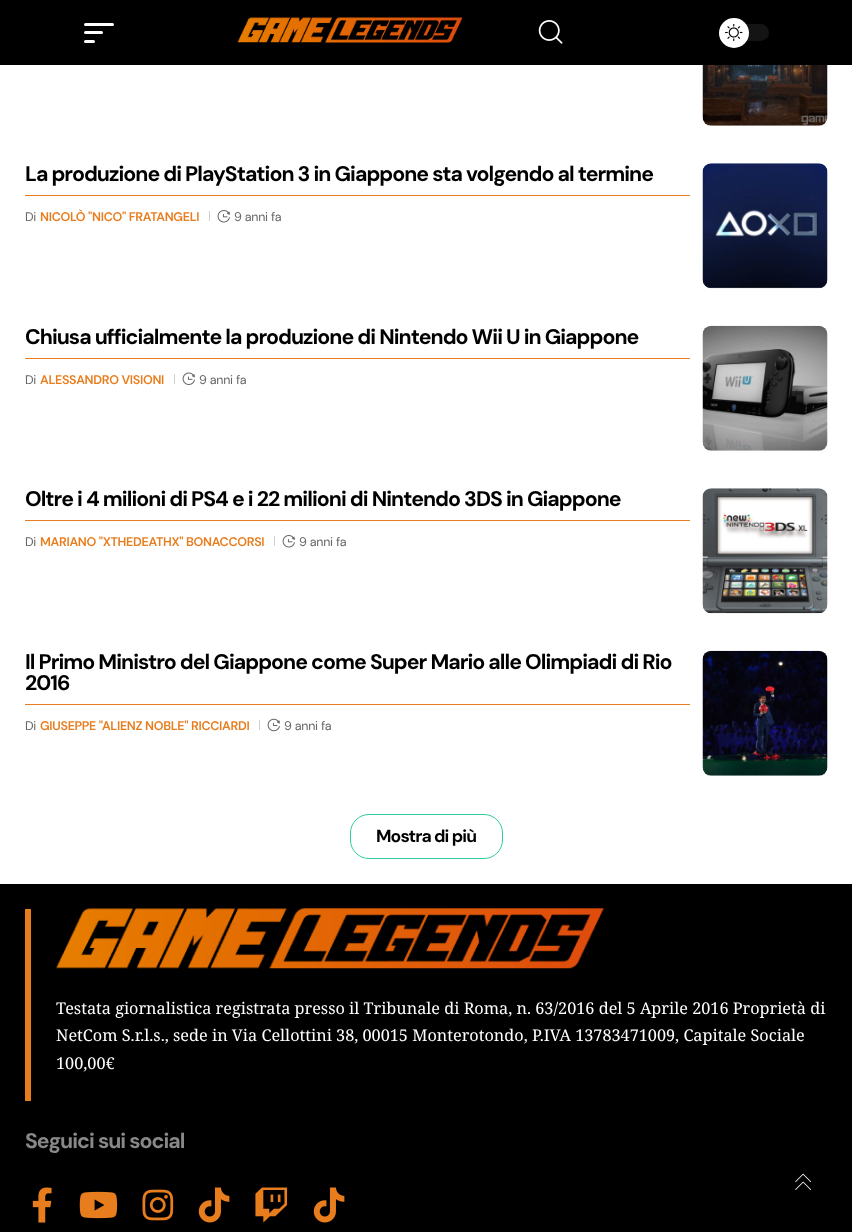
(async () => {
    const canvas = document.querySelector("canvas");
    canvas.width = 852;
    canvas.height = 1232;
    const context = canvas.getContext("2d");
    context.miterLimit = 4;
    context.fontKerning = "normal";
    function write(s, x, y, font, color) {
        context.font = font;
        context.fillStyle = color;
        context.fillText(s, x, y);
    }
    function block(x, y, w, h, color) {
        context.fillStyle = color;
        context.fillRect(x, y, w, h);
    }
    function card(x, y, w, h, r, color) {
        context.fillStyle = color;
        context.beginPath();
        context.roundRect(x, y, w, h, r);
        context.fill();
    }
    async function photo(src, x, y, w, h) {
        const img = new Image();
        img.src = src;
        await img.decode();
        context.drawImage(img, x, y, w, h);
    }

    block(0, 0, 852, 1232, "rgb(255, 255, 255)");
    block(0, 0, 852, 65, "rgb(0, 0, 0)");
    card(84, 23, 30, 3, 1.5, "rgb(255, 255, 255)");
    card(84, 31, 19, 3, 1.5, "rgb(255, 255, 255)");
    card(84, 40, 11, 3, 1.5, "rgb(255, 255, 255)");
    await photo("media/1.png", 237, 17, 226, 26);
    await photo("media/2.png", 538, 20, 25, 24);
    card(719, 24, 50, 17, 8.5, "rgb(20, 20, 20)");
    context.fillStyle = "rgb(255, 255, 255)";
    context.beginPath();
    context.arc(734, 33, 15, 0, Math.PI * 2);
    context.fill();
    await photo("media/3.png", 725, 24, 18, 17);
    await photo("media/4.png", 702, 65, 126, 61);
    context.letterSpacing = "-0.97px";
    write("La produzione di PlayStation 3 in Giappone sta volgendo al termine", 25, 181, "bold 21.25px DM Sans", "rgb(0, 0, 0)");
    await photo("media/5.png", 702, 163, 126, 126);
    block(25, 195, 665, 1, "rgb(232, 125, 29)");
    context.letterSpacing = "-0.25px";
    write("Di", 25, 221, "12.5px DM Sans", "rgb(102, 102, 102)");
    context.letterSpacing = "-0.3px";
    write("NICOLÒ \"NICO\" FRATANGELI", 40, 221, "600 12.5px DM Sans", "rgb(232, 125, 29)");
    block(209, 211, 1, 10, "rgb(209, 209, 209)");
    await photo("media/6.png", 217, 210, 13, 13);
    context.letterSpacing = "-0.25px";
    write("9 anni fa", 234, 221, "12.5px DM Sans", "rgb(102, 102, 102)");
    context.letterSpacing = "-0.97px";
    write("Chiusa ufficialmente la produzione di Nintendo Wii U in Giappone", 25, 344, "bold 21.25px DM Sans", "rgb(0, 0, 0)");
    await photo("media/7.png", 702, 325, 126, 126);
    block(25, 358, 665, 1, "rgb(232, 125, 29)");
    context.letterSpacing = "-0.25px";
    write("Di", 25, 384, "12.5px DM Sans", "rgb(102, 102, 102)");
    context.letterSpacing = "-0.3px";
    write("ALESSANDRO VISIONI", 40, 384, "600 12.5px DM Sans", "rgb(232, 125, 29)");
    block(174, 374, 1, 10, "rgb(209, 209, 209)");
    await photo("media/8.png", 182, 372, 13, 13);
    context.letterSpacing = "-0.25px";
    write("9 anni fa", 199, 384, "12.5px DM Sans", "rgb(102, 102, 102)");
    context.letterSpacing = "-0.97px";
    write("Oltre i 4 milioni di PS4 e i 22 milioni di Nintendo 3DS in Giappone", 25, 506, "bold 21.25px DM Sans", "rgb(0, 0, 0)");
    await photo("media/9.png", 702, 488, 126, 126);
    block(25, 520, 665, 1, "rgb(232, 125, 29)");
    context.letterSpacing = "-0.25px";
    write("Di", 25, 546, "12.5px DM Sans", "rgb(102, 102, 102)");
    context.letterSpacing = "-0.3px";
    write("MARIANO \"XTHEDEATHX\" BONACCORSI", 40, 546, "600 12.5px DM Sans", "rgb(232, 125, 29)");
    block(274, 536, 1, 10, "rgb(209, 209, 209)");
    await photo("media/6.png", 282, 535, 13, 13);
    context.letterSpacing = "-0.25px";
    write("9 anni fa", 299, 546, "12.5px DM Sans", "rgb(102, 102, 102)");
    context.letterSpacing = "-0.97px";
    write("Il Primo Ministro del Giappone come Super Mario alle Olimpiadi di Rio", 25, 669, "bold 21.25px DM Sans", "rgb(0, 0, 0)");
    write("2016", 25, 690, "bold 21.25px DM Sans", "rgb(0, 0, 0)");
    await photo("media/10.png", 702, 650, 126, 126);
    block(25, 704, 665, 1, "rgb(232, 125, 29)");
    context.letterSpacing = "-0.25px";
    write("Di", 25, 730, "12.5px DM Sans", "rgb(102, 102, 102)");
    context.letterSpacing = "-0.3px";
    write("GIUSEPPE \"ALIENZ NOBLE\" RICCIARDI", 40, 730, "600 12.5px DM Sans", "rgb(232, 125, 29)");
    block(259, 720, 1, 10, "rgb(209, 209, 209)");
    await photo("media/11.png", 267, 718, 13, 14);
    context.letterSpacing = "-0.25px";
    write("9 anni fa", 284, 730, "12.5px DM Sans", "rgb(102, 102, 102)");
    context.beginPath();
    context.roundRect(350.5, 814.5, 152, 44, 18.5);
    context.strokeStyle = "rgb(48, 204, 160)";
    context.stroke();
    context.letterSpacing = "-0.9px";
    write("Mostra di più", 376, 842, "bold 17.5px DM Sans", "rgb(0, 0, 0)");
    block(0, 884, 852, 348, "rgb(0, 0, 0)");
    block(25, 909, 6, 192, "rgb(232, 125, 29)");
    await photo("media/12.png", 56, 908, 548, 61);
    context.letterSpacing = "0px";
    write("Testata giornalistica registrata presso il Tribunale di Roma, n. 63/2016 del 5 Aprile 2016 Proprietà di", 56, 1014, "16.25px Noto Serif", "rgb(255, 255, 255)");
    write("NetCom S.r.l.s., sede in Via Cellottini 38, 00015 Monterotondo, P.IVA 13783471009, Capitale Sociale", 56, 1041, "16.25px Noto Serif", "rgb(255, 255, 255)");
    write("100,00€", 56, 1069, "16.25px Noto Serif", "rgb(255, 255, 255)");
    context.letterSpacing = "-0.97px";
    write("Seguici sui social", 25, 1148, "bold 21.25px DM Sans", "rgb(136, 136, 136)");
    await photo("media/13.png", 32, 1187, 20, 36);
    await photo("media/14.png", 79, 1191, 39, 28);
    await photo("media/15.png", 142, 1189, 32, 32);
    await photo("media/16.png", 198, 1187, 32, 36);
    await photo("media/17.png", 255, 1187, 33, 36);
    await photo("media/16.png", 313, 1187, 32, 36);
    await photo("media/18.png", 795, 1173, 16, 17);
})();
